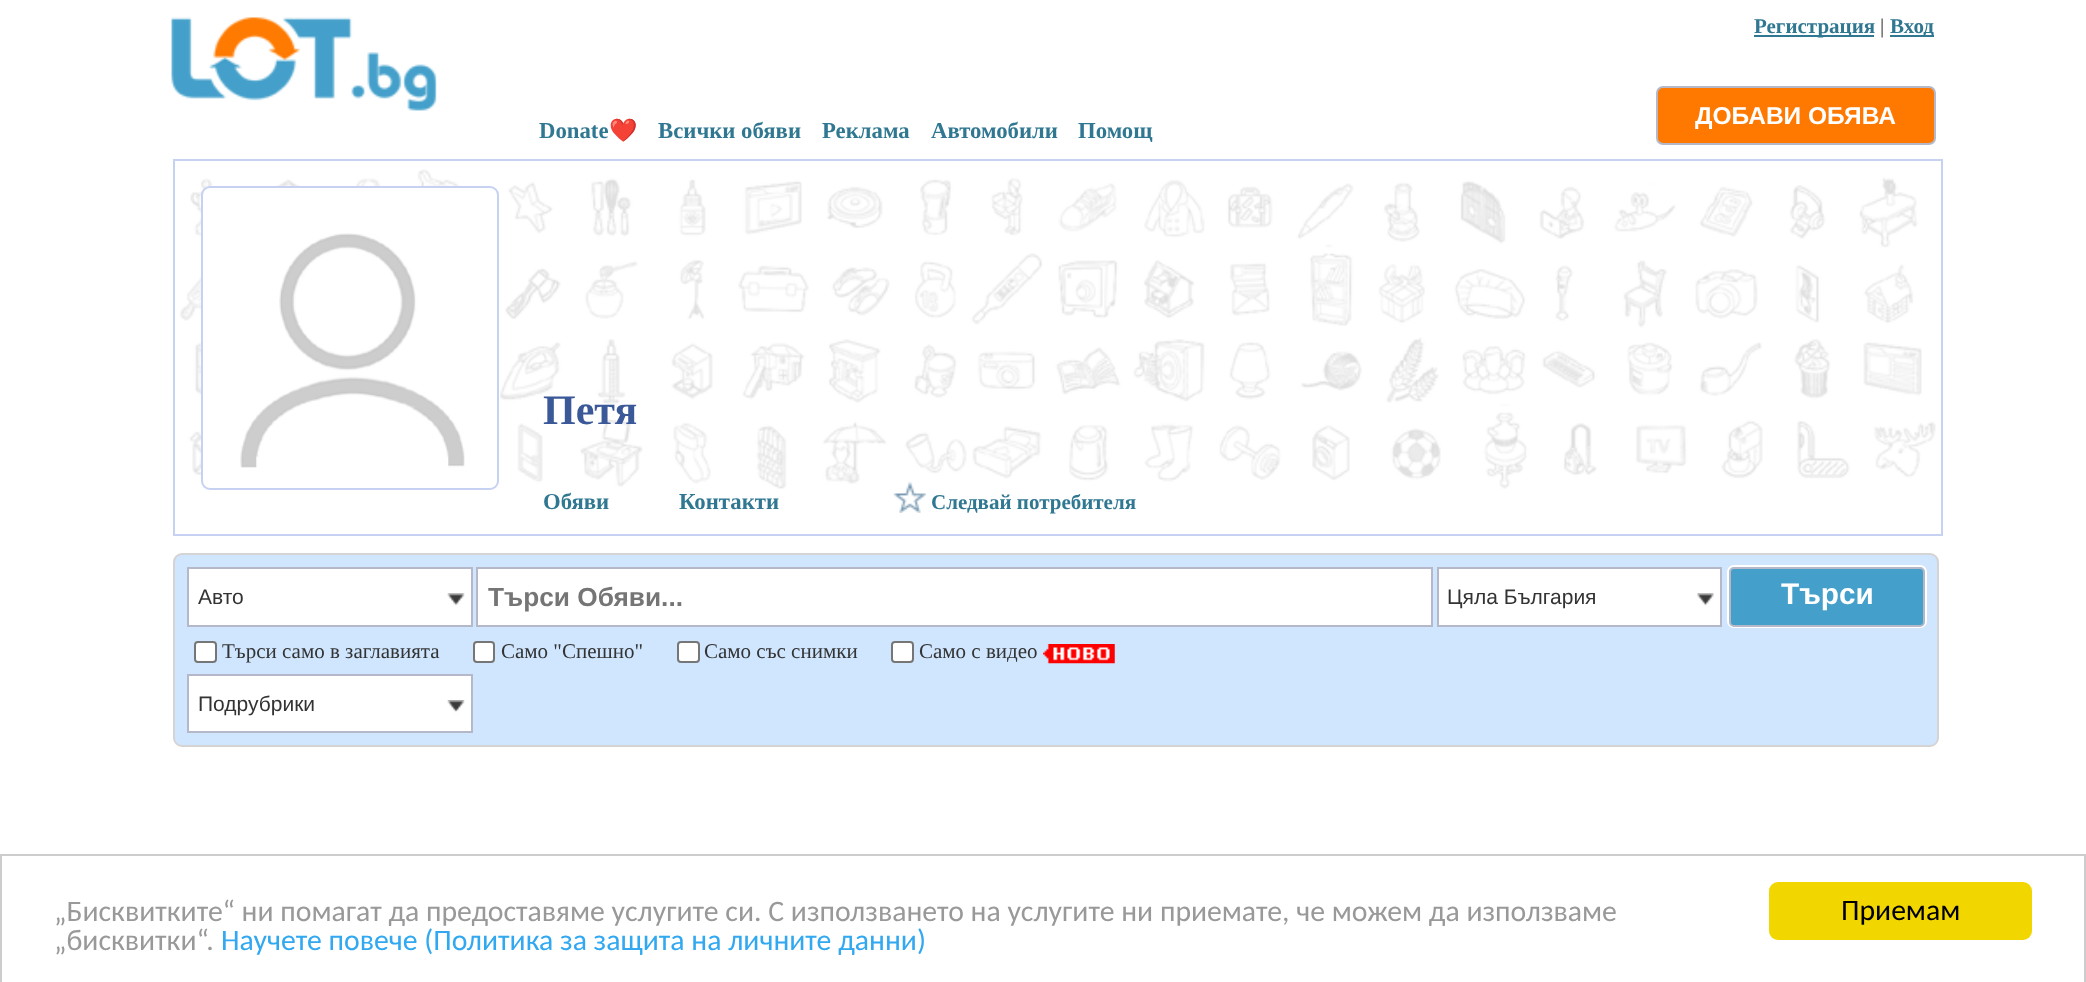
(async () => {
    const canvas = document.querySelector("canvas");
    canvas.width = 2086;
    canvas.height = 982;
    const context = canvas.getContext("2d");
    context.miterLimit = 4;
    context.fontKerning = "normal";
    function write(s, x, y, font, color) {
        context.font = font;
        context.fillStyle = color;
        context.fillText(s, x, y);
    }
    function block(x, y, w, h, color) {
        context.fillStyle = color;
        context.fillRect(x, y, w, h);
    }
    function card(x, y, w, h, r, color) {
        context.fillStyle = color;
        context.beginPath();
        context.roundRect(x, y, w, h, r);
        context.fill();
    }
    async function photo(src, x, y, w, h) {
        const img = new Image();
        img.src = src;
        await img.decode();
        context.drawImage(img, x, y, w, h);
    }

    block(0, 0, 2086, 982, "rgb(255, 255, 255)");
    block(1754, 35, 120, 2, "rgb(48, 119, 146)");
    write("Регистрация", 1754, 33, "bold 21px Liberation Serif", "rgb(48, 119, 146)");
    write("|", 1880, 33, "21px Liberation Serif", "rgb(51, 51, 51)");
    block(1890, 35, 44, 2, "rgb(48, 119, 146)");
    write("Вход", 1890, 33, "bold 21px Liberation Serif", "rgb(48, 119, 146)");
    await photo("media/1.png", 171, 17, 266, 94);
    write("Donate", 539, 138, "bold 22.75px Liberation Serif", "rgb(48, 119, 146)");
    write("❤️", 609, 138, "bold 22.75px Noto Color Emoji", "rgb(48, 119, 146)");
    write("Всички обяви", 658, 138, "bold 22.75px Liberation Serif", "rgb(48, 119, 146)");
    write("Реклама", 822, 138, "bold 22.75px Liberation Serif", "rgb(48, 119, 146)");
    write("Автомобили", 931, 138, "bold 22.75px Liberation Serif", "rgb(48, 119, 146)");
    write("Помощ", 1078, 138, "bold 22.75px Liberation Serif", "rgb(48, 119, 146)");
    context.fillStyle = "rgb(255, 121, 0)";
    context.beginPath();
    context.roundRect(1657, 87, 278, 57, 6);
    context.fill();
    context.strokeStyle = "rgb(181, 184, 200)";
    context.lineWidth = 2;
    context.stroke();
    write("ДОБАВИ ОБЯВА", 1695, 124, "bold 24.5px Liberation Sans", "rgb(255, 255, 255)");
    context.strokeStyle = "rgb(199, 210, 243)";
    context.strokeRect(174, 160, 1768, 375);
    await photo("media/3.png", 180, 169, 1756, 320);
    context.beginPath();
    context.roundRect(202, 187, 296, 302, 8);
    context.fill();
    context.stroke();
    await photo("media/2.png", 240, 233, 225, 235);
    write("Петя", 543, 424, "bold 42px Liberation Serif", "rgb(59, 89, 152)");
    write("Обяви", 543, 509, "bold 22.75px Liberation Serif", "rgb(48, 119, 146)");
    write("Контакти", 679, 509, "bold 22.75px Liberation Serif", "rgb(48, 119, 146)");
    await photo("media/4.png", 893, 481, 33, 32);
    write("Следвай потребителя", 931, 509, "bold 21px Liberation Serif", "rgb(48, 119, 146)");
    context.fillStyle = "rgb(207, 230, 254)";
    context.beginPath();
    context.roundRect(174, 554, 1764, 192, 8);
    context.fill();
    context.strokeStyle = "rgb(212, 212, 212)";
    context.stroke();
    block(189, 569, 282, 56, "rgb(255, 255, 255)");
    await photo("media/5.png", 447, 593, 18, 13);
    context.strokeStyle = "rgb(181, 184, 200)";
    context.strokeRect(188, 568, 284, 58);
    write("Авто", 198, 604, "21px Liberation Sans", "rgb(51, 51, 51)");
    context.fillStyle = "rgb(255, 255, 255)";
    context.beginPath();
    context.rect(477, 568, 955, 58);
    context.fill();
    context.stroke();
    write("Търси Обяви...", 488, 606, "bold 26.25px Liberation Sans", "rgb(117, 117, 117)");
    block(1439, 569, 281, 56, "rgb(255, 255, 255)");
    await photo("media/6.png", 1697, 593, 17, 13);
    context.strokeRect(1438, 568, 283, 58);
    write("Цяла България", 1447, 604, "21px Liberation Sans", "rgb(51, 51, 51)");
    context.beginPath();
    context.roundRect(1728, 566, 198, 61, 6);
    context.strokeStyle = "rgb(255, 255, 255)";
    context.stroke();
    context.fillStyle = "rgb(68, 160, 202)";
    context.beginPath();
    context.roundRect(1730, 568, 194, 58, 4);
    context.fill();
    context.strokeStyle = "rgb(181, 184, 200)";
    context.stroke();
    write("Търси", 1781, 604, "bold 29.75px Liberation Sans", "rgb(255, 255, 255)");
    context.beginPath();
    context.roundRect(195, 642, 21, 20, 3);
    context.fill();
    context.strokeStyle = "rgb(118, 118, 118)";
    context.stroke();
    write("Търси само в заглавията", 222, 658, "21px Liberation Serif", "rgb(51, 51, 51)");
    context.fillStyle = "rgb(255, 255, 255)";
    context.beginPath();
    context.roundRect(474, 642, 20, 20, 3);
    context.fill();
    context.stroke();
    write("Само \"Спешно\"", 501, 658, "21px Liberation Serif", "rgb(51, 51, 51)");
    context.fillStyle = "rgb(255, 255, 255)";
    context.beginPath();
    context.roundRect(678, 642, 21, 20, 3);
    context.fill();
    context.stroke();
    write("Само със снимки", 704, 658, "21px Liberation Serif", "rgb(51, 51, 51)");
    context.fillStyle = "rgb(255, 255, 255)";
    context.beginPath();
    context.roundRect(892, 642, 21, 20, 3);
    context.fill();
    context.stroke();
    write("Само с видео", 919, 658, "21px Liberation Serif", "rgb(51, 51, 51)");
    await photo("media/7.png", 1043, 644, 72, 20);
    block(189, 676, 282, 55, "rgb(255, 255, 255)");
    await photo("media/8.png", 447, 700, 18, 13);
    context.strokeStyle = "rgb(181, 184, 200)";
    context.strokeRect(188, 675, 284, 57);
    write("Подрубрики", 198, 711, "21px Liberation Sans", "rgb(51, 51, 51)");
    context.strokeStyle = "rgb(204, 204, 204)";
    context.strokeRect(1, 855, 2084, 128);
    write("„Бисквитките“ ни помагат да предоставяме услугите си. С използването на услугите ни приемате, че можем да използваме", 54, 921, "29.75px Carlito", "rgb(153, 153, 153)");
    write("„бисквитки“.", 54, 950, "29.75px Carlito", "rgb(153, 153, 153)");
    write("Научете повече (Политика за защита на личните данни)", 221, 950, "29.75px Carlito", "rgb(49, 168, 240)");
    card(1769, 882, 263, 58, 9, "rgb(241, 214, 0)");
    write("Приемам", 1841, 920, "29.75px Carlito", "rgb(0, 0, 0)");
})();
